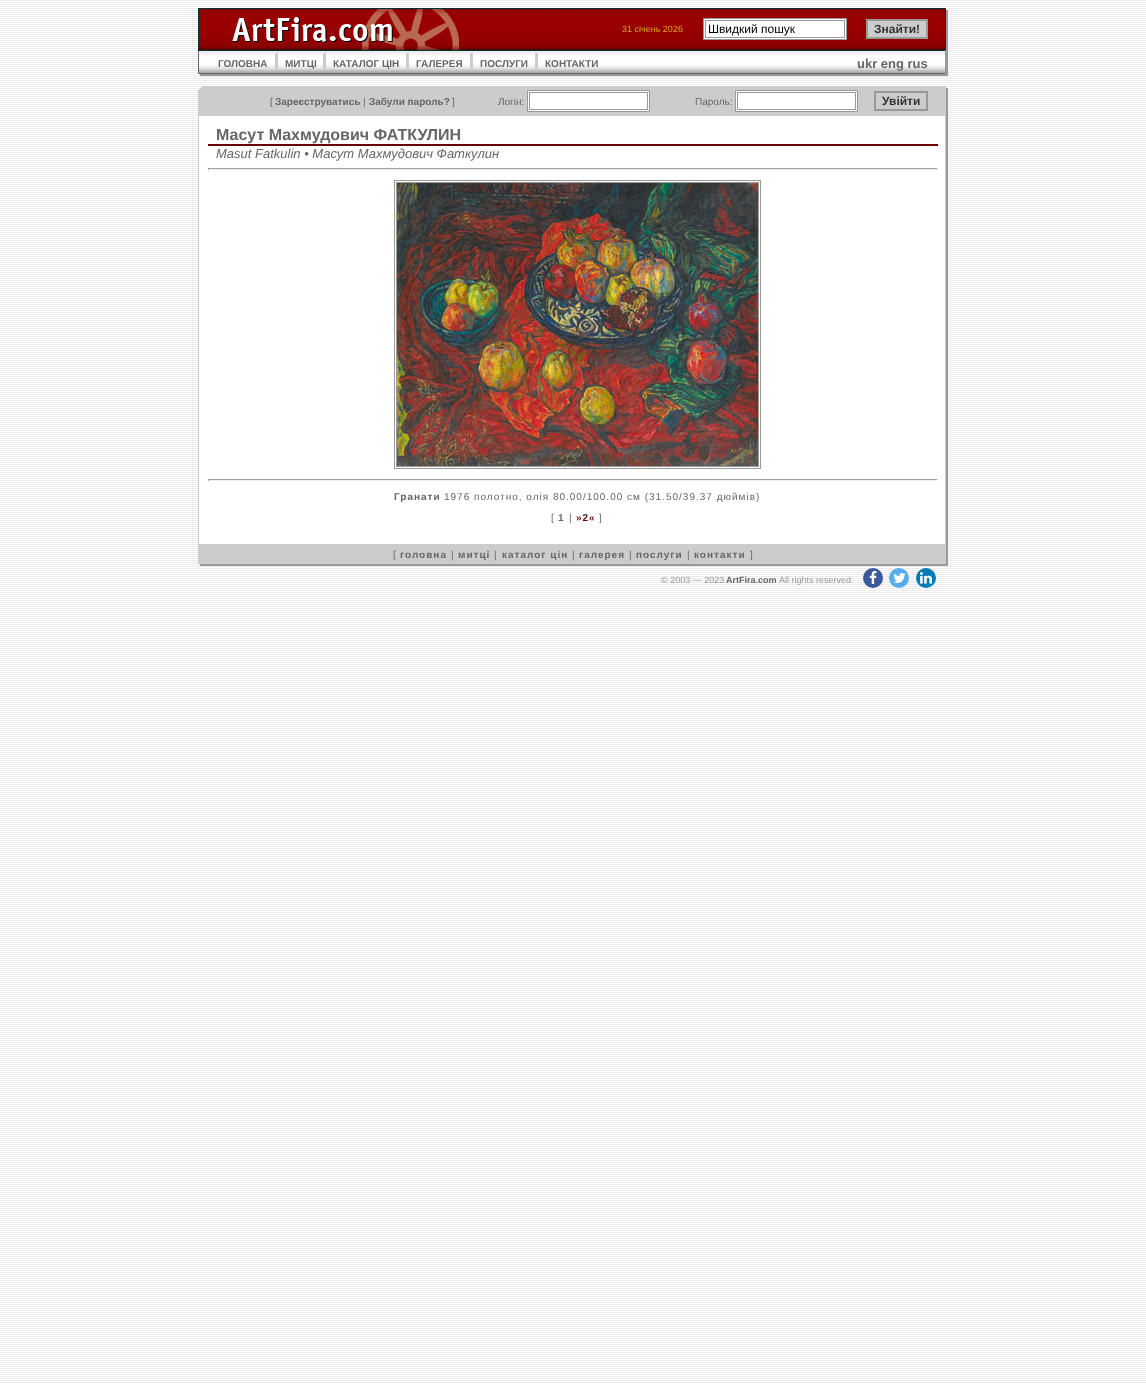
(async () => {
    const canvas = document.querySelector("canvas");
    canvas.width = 1146;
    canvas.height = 1383;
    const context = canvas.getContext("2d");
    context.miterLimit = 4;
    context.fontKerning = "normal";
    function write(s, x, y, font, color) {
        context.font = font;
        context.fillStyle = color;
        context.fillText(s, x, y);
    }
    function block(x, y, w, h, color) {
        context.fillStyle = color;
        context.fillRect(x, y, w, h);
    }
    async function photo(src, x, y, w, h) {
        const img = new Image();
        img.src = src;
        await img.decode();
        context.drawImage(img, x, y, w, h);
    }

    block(0, 0, 1146, 1383, "rgb(255, 255, 255)");
    await photo("media/1.png", 0, 0, 1146, 1383);
    await photo("media/2.png", 198, 8, 387, 42);
    await photo("media/3.png", 585, 8, 343, 42);
    write("31 січень 2026", 622, 32, "9px Liberation Sans", "rgb(218, 165, 32)");
    context.fillStyle = "rgb(255, 255, 255)";
    context.beginPath();
    context.rect(703.5, 18.5, 143, 21);
    context.fill();
    context.strokeStyle = "rgb(153, 153, 153)";
    context.stroke();
    context.strokeRect(705.5, 20.5, 139, 17);
    write("Швидкий пошук", 708, 33, "12px Liberation Sans", "rgb(0, 0, 0)");
    context.fillStyle = "rgb(204, 204, 204)";
    context.beginPath();
    context.rect(867, 20, 60, 18);
    context.fill();
    context.lineWidth = 2;
    context.stroke();
    write("Знайти!", 874, 33, "bold 12px Liberation Sans", "rgb(51, 51, 51)");
    await photo("media/4.png", 928, 8, 20, 42);
    await photo("media/5.png", 198, 50, 750, 26);
    await photo("media/6.png", 198, 51, 2, 25);
    write("ГОЛОВНА", 218, 67, "bold 10px Liberation Sans", "rgb(102, 102, 102)");
    block(275, 53, 3, 17, "rgb(204, 204, 204)");
    write("МИТЦІ", 285, 67, "bold 10px Liberation Sans", "rgb(102, 102, 102)");
    block(323, 53, 3, 17, "rgb(204, 204, 204)");
    write("КАТАЛОГ ЦІН", 333, 67, "bold 10px Liberation Sans", "rgb(102, 102, 102)");
    block(406, 53, 3, 17, "rgb(204, 204, 204)");
    write("ГАЛЕРЕЯ", 416, 67, "bold 10px Liberation Sans", "rgb(102, 102, 102)");
    block(470, 53, 3, 17, "rgb(204, 204, 204)");
    write("ПОСЛУГИ", 480, 67, "bold 10px Liberation Sans", "rgb(102, 102, 102)");
    block(535, 53, 3, 17, "rgb(204, 204, 204)");
    write("КОНТАКТИ", 545, 67, "bold 10px Liberation Sans", "rgb(102, 102, 102)");
    write("ukr eng rus", 857, 68, "bold 13px Liberation Sans", "rgb(102, 102, 102)");
    block(945, 50, 3, 24, "rgb(153, 153, 153)");
    await photo("media/7.png", 198, 86, 20, 30);
    block(218, 86, 710, 30, "rgb(204, 204, 204)");
    write("[", 270, 105, "10px Liberation Sans", "rgb(102, 102, 102)");
    write("Зареєструватись", 275, 105, "bold 10px Liberation Sans", "rgb(102, 102, 102)");
    write("|", 363, 105, "10px Liberation Sans", "rgb(102, 102, 102)");
    write("Забули пароль?", 369, 105, "bold 10px Liberation Sans", "rgb(102, 102, 102)");
    write("]", 452, 105, "10px Liberation Sans", "rgb(102, 102, 102)");
    write("Логін:", 498, 105, "10px Liberation Sans", "rgb(102, 102, 102)");
    context.fillStyle = "rgb(255, 255, 255)";
    context.beginPath();
    context.rect(527.5, 90.5, 122, 21);
    context.fill();
    context.lineWidth = 1;
    context.stroke();
    context.strokeRect(529.5, 92.5, 118, 17);
    write("Пароль:", 695, 105, "10px Liberation Sans", "rgb(102, 102, 102)");
    context.fillStyle = "rgb(255, 255, 255)";
    context.beginPath();
    context.rect(735.5, 90.5, 122, 21);
    context.fill();
    context.stroke();
    context.strokeRect(737.5, 92.5, 118, 17);
    context.lineWidth = 2;
    context.strokeRect(875, 92, 52, 18);
    write("Увійти", 882, 105, "bold 12px Liberation Sans", "rgb(51, 51, 51)");
    await photo("media/8.png", 928, 86, 20, 30);
    await photo("media/9.png", 198, 116, 750, 428);
    block(208, 144, 730, 2, "rgb(102, 0, 0)");
    write("Масут Махмудович ФАТКУЛИН", 216, 140, "bold 16px Liberation Sans", "rgb(102, 102, 102)");
    write("Masut Fatkulin • Масут Махмудович Фаткулин", 216, 158, "italic 13px Liberation Sans", "rgb(102, 102, 102)");
    block(208, 168, 730, 1, "rgb(159, 159, 159)");
    block(937, 168, 1, 2, "rgb(238, 238, 238)");
    block(208, 169, 730, 1, "rgb(238, 238, 238)");
    block(208, 168, 1, 2, "rgb(159, 159, 159)");
    context.lineWidth = 1;
    context.strokeRect(394.5, 180.5, 366, 288);
    context.strokeRect(396.5, 182.5, 362, 284);
    await photo("media/10.png", 397, 183, 361, 283);
    block(208, 479, 730, 1, "rgb(159, 159, 159)");
    block(937, 479, 1, 2, "rgb(238, 238, 238)");
    block(208, 480, 730, 1, "rgb(238, 238, 238)");
    block(208, 479, 1, 2, "rgb(159, 159, 159)");
    context.letterSpacing = "1px";
    write("Гранати", 394, 500, "bold 10px Liberation Sans", "rgb(102, 102, 102)");
    write("1976 полотно, олія 80.00/100.00 см (31.50/39.37 дюймів)", 444, 500, "10px Liberation Sans", "rgb(102, 102, 102)");
    write("[", 551, 521, "10px Liberation Sans", "rgb(102, 102, 102)");
    write("1", 558, 521, "bold 10px Liberation Sans", "rgb(102, 102, 102)");
    write("|", 569, 521, "10px Liberation Sans", "rgb(102, 102, 102)");
    write("»2«", 576, 521, "bold 10px Liberation Sans", "rgb(102, 0, 0)");
    write("]", 599, 521, "10px Liberation Sans", "rgb(102, 102, 102)");
    await photo("media/11.png", 198, 544, 20, 22);
    await photo("media/12.png", 218, 544, 710, 22);
    write("[", 393, 558, "10px Liberation Sans", "rgb(102, 102, 102)");
    write("головна", 400, 558, "bold 10px Liberation Sans", "rgb(102, 102, 102)");
    write("|", 451, 558, "10px Liberation Sans", "rgb(102, 102, 102)");
    write("митці", 458, 558, "bold 10px Liberation Sans", "rgb(102, 102, 102)");
    write("|", 494, 558, "10px Liberation Sans", "rgb(102, 102, 102)");
    write("каталог цін", 502, 558, "bold 10px Liberation Sans", "rgb(102, 102, 102)");
    write("|", 572, 558, "10px Liberation Sans", "rgb(102, 102, 102)");
    write("галерея", 579, 558, "bold 10px Liberation Sans", "rgb(102, 102, 102)");
    write("|", 629, 558, "10px Liberation Sans", "rgb(102, 102, 102)");
    write("послуги", 636, 558, "bold 10px Liberation Sans", "rgb(102, 102, 102)");
    write("|", 687, 558, "10px Liberation Sans", "rgb(102, 102, 102)");
    write("контакти", 694, 558, "bold 10px Liberation Sans", "rgb(102, 102, 102)");
    write("]", 750, 558, "10px Liberation Sans", "rgb(102, 102, 102)");
    await photo("media/13.png", 928, 544, 20, 22);
    context.letterSpacing = "0px";
    write("© 2003 — 2023", 661, 583, "9px Liberation Sans", "rgb(153, 153, 153)");
    write("ArtFira.com", 726, 583, "bold 9px Liberation Sans", "rgb(102, 102, 102)");
    write("All rights reserved.", 779, 583, "9px Liberation Sans", "rgb(153, 153, 153)");
    context.fillStyle = "rgb(59, 89, 152)";
    context.beginPath();
    context.arc(873, 578, 10, 0, Math.PI * 2);
    context.fill();
    await photo("media/14.png", 869, 571, 8, 13);
    context.fillStyle = "rgb(85, 172, 238)";
    context.beginPath();
    context.arc(899, 578, 10, 0, Math.PI * 2);
    context.fill();
    await photo("media/15.png", 893, 573, 13, 10);
    context.fillStyle = "rgb(0, 123, 181)";
    context.beginPath();
    context.arc(926, 578, 10, 0, Math.PI * 2);
    context.fill();
    await photo("media/16.png", 920, 572, 12, 12);
})();
